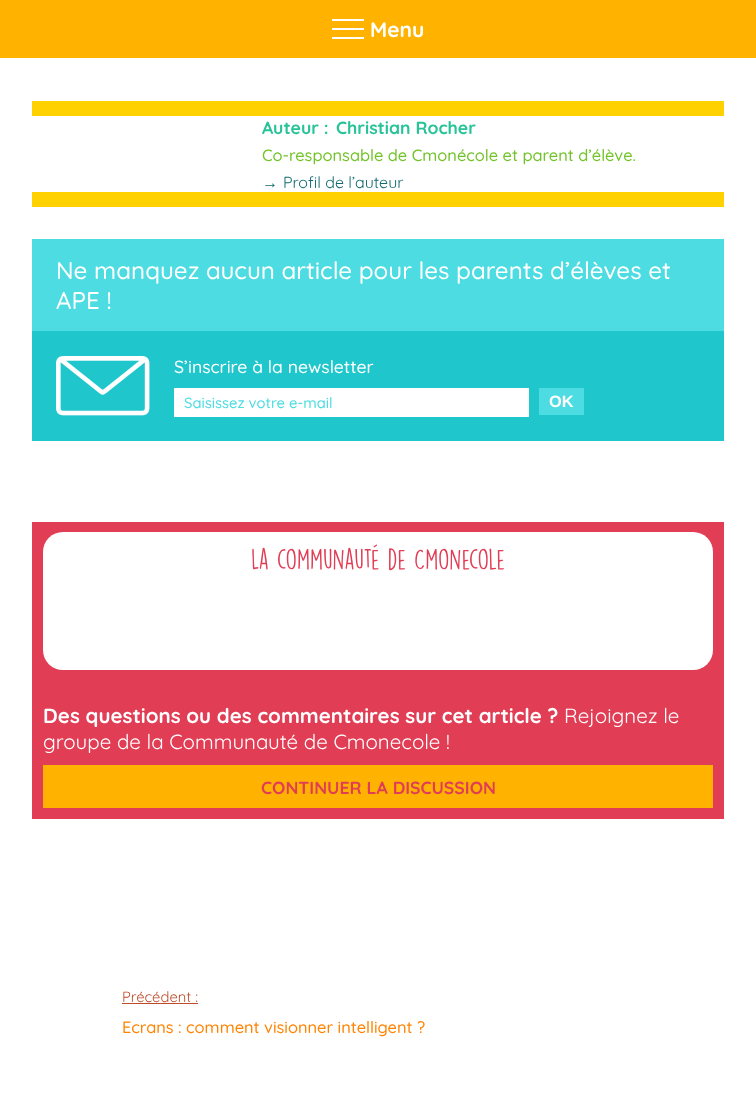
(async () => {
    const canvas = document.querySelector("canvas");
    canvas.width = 756;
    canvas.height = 1098;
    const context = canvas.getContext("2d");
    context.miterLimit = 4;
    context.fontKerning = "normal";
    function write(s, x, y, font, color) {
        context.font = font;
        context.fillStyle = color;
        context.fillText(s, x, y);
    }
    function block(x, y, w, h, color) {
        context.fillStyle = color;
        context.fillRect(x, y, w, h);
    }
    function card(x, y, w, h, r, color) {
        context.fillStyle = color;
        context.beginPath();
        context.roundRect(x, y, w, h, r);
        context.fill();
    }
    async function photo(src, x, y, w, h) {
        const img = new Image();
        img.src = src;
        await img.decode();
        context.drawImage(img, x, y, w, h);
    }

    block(0, 0, 756, 1098, "rgb(255, 255, 255)");
    block(0, 0, 756, 58, "rgb(255, 179, 0)");
    block(332, 19, 32, 2, "rgb(255, 255, 255)");
    block(332, 28, 32, 2, "rgb(255, 255, 255)");
    block(332, 37, 32, 2, "rgb(255, 255, 255)");
    write("Menu", 370, 37, "bold 21px Quicksand", "rgb(255, 255, 255)");
    block(32, 101, 692, 15, "rgb(255, 209, 0)");
    block(32, 192, 692, 15, "rgb(255, 209, 0)");
    write("Auteur :", 262, 134, "bold 17.6px Quicksand", "rgb(41, 195, 153)");
    write("Christian Rocher", 336, 134, "bold 17.6px Quicksand", "rgb(41, 195, 153)");
    write("Co-responsable de Cmonécole et parent d’élève.", 262, 161, "500 16.4px Quicksand", "rgb(113, 195, 41)");
    write("→", 262, 188, "16px Liberation Sans", "rgb(17, 106, 109)");
    write("Profil de l’auteur", 283, 188, "16px Quicksand", "rgb(17, 106, 109)");
    block(32, 239, 692, 92, "rgb(76, 220, 226)");
    write("Ne manquez aucun article pour les parents d’élèves et", 56, 279, "500 24.15px Quicksand", "rgb(255, 255, 255)");
    write("APE !", 56, 309, "500 24.15px Quicksand", "rgb(255, 255, 255)");
    block(32, 331, 692, 110, "rgb(31, 199, 205)");
    await photo("media/1.png", 56, 356, 94, 60);
    write("S’inscrire à la newsletter", 174, 373, "500 17.6px Quicksand", "rgb(255, 255, 255)");
    block(174, 388, 355, 29, "rgb(255, 255, 255)");
    write("Saisissez votre e-mail", 184, 408, "500 14.75px Quicksand", "rgb(76, 220, 226)");
    block(539, 388, 45, 27, "rgb(76, 220, 226)");
    write("OK", 549, 407, "bold 16.4px Liberation Sans", "rgb(255, 255, 255)");
    block(32, 522, 692, 297, "rgb(225, 61, 85)");
    card(43, 532, 670, 138, 20, "rgb(255, 255, 255)");
    write("La communauté de Cmonecole", 251, 570, "26.25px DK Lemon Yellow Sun", "rgb(225, 61, 85)");
    write("Des questions ou des commentaires sur cet article ?", 43, 723, "bold 20.5px Quicksand", "rgb(255, 255, 255)");
    write("Rejoignez le", 564, 723, "20.5px Quicksand", "rgb(255, 255, 255)");
    write("groupe de la Communauté de Cmonecole !", 43, 749, "20.5px Quicksand", "rgb(255, 255, 255)");
    block(43, 765, 670, 43, "rgb(255, 179, 0)");
    write("CONTINUER LA DISCUSSION", 261, 794, "bold 17.6px Quicksand", "rgb(225, 61, 85)");
    write("Précédent :", 122, 1002, "14.75px Quicksand", "rgb(189, 76, 42)");
    block(122, 1003, 76, 1, "rgb(189, 76, 42)");
    write("Ecrans : comment visionner intelligent ?", 122, 1033, "500 16.4px Quicksand", "rgb(255, 131, 0)");
})();
